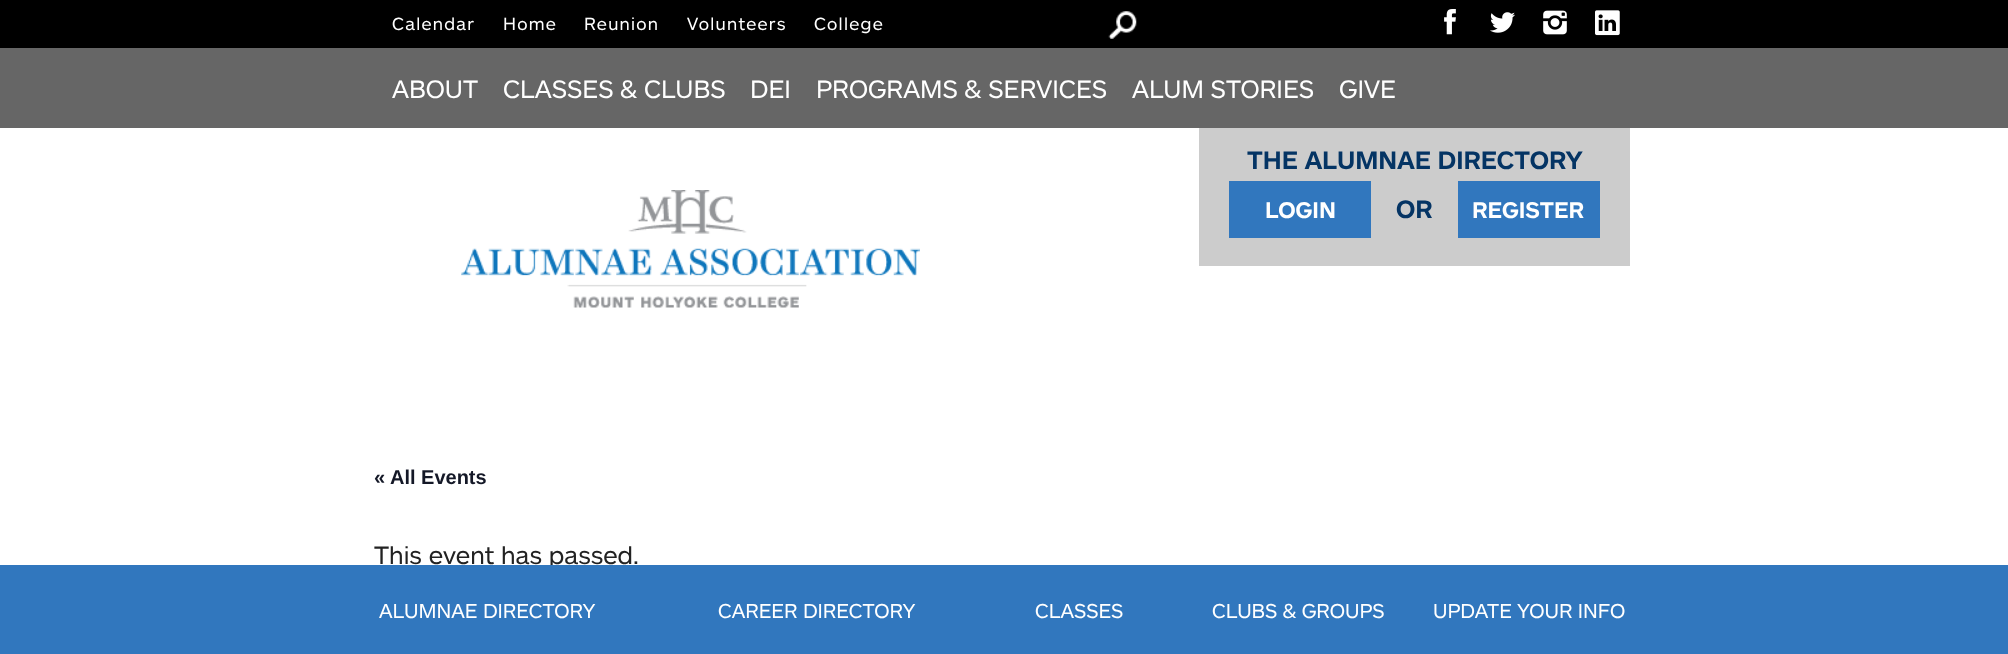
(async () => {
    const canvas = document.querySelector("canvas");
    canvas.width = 2008;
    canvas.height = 654;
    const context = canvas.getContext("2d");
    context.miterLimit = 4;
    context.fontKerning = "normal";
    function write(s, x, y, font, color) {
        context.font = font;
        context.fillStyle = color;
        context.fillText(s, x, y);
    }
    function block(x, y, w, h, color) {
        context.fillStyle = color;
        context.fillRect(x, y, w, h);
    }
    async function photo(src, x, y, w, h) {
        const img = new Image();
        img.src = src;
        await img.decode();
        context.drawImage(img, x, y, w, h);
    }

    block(0, 0, 2008, 654, "rgb(255, 255, 255)");
    block(0, 0, 2008, 48, "rgb(0, 0, 0)");
    context.letterSpacing = "1.25px";
    write("Calendar", 392, 30, "17.5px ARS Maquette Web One", "rgb(255, 255, 255)");
    write("Home", 503, 30, "17.5px ARS Maquette Web One", "rgb(255, 255, 255)");
    write("Reunion", 584, 30, "17.5px ARS Maquette Web One", "rgb(255, 255, 255)");
    write("Volunteers", 687, 30, "17.5px ARS Maquette Web One", "rgb(255, 255, 255)");
    write("College", 814, 30, "17.5px ARS Maquette Web One", "rgb(255, 255, 255)");
    await photo("media/1.png", 1108, 11, 29, 28);
    await photo("media/2.png", 1444, 9, 12, 26);
    await photo("media/3.png", 1490, 12, 25, 21);
    await photo("media/4.png", 1543, 10, 24, 25);
    await photo("media/5.png", 1595, 10, 25, 26);
    block(0, 48, 2008, 80, "rgb(102, 102, 102)");
    context.letterSpacing = "0px";
    write("ABOUT", 392, 98, "25px ARS Maquette Web One", "rgb(255, 255, 255)");
    write("CLASSES & CLUBS", 503, 98, "25px ARS Maquette Web One", "rgb(255, 255, 255)");
    write("DEI", 750, 98, "25px ARS Maquette Web One", "rgb(255, 255, 255)");
    write("PROGRAMS & SERVICES", 816, 98, "25px ARS Maquette Web One", "rgb(255, 255, 255)");
    write("ALUM STORIES", 1132, 98, "25px ARS Maquette Web One", "rgb(255, 255, 255)");
    write("GIVE", 1339, 98, "25px ARS Maquette Web One", "rgb(255, 255, 255)");
    await photo("media/6.png", 461, 190, 459, 118);
    block(1199, 128, 431, 138, "rgb(204, 204, 204)");
    write("THE ALUMNAE DIRECTORY", 1247, 169, "bold 25px ARS Maquette Web One", "rgb(4, 52, 100)");
    block(1229, 181, 142, 57, "rgb(49, 119, 190)");
    write("LOGIN", 1265, 218, "bold 22.5px ARS Maquette Web One", "rgb(255, 255, 255)");
    write("OR", 1396, 218, "bold 25px ARS Maquette Web One", "rgb(4, 52, 100)");
    block(1458, 181, 142, 57, "rgb(49, 119, 190)");
    write("REGISTER", 1472, 218, "bold 22.5px ARS Maquette Web One", "rgb(255, 255, 255)");
    write("« All Events", 374, 484, "bold 20px Liberation Sans", "rgb(20, 24, 39)");
    write("This event has passed.", 374, 564, "25px ARS Maquette Web One", "rgb(34, 34, 34)");
    block(0, 565, 2008, 89, "rgb(49, 119, 190)");
    write("ALUMNAE DIRECTORY", 379, 618, "20px ARS Maquette Web One", "rgb(255, 255, 255)");
    write("CAREER DIRECTORY", 718, 618, "20px ARS Maquette Web One", "rgb(255, 255, 255)");
    write("CLASSES", 1035, 618, "20px ARS Maquette Web One", "rgb(255, 255, 255)");
    write("CLUBS & GROUPS", 1212, 618, "20px ARS Maquette Web One", "rgb(255, 255, 255)");
    write("UPDATE YOUR INFO", 1433, 618, "20px ARS Maquette Web One", "rgb(255, 255, 255)");
})();
